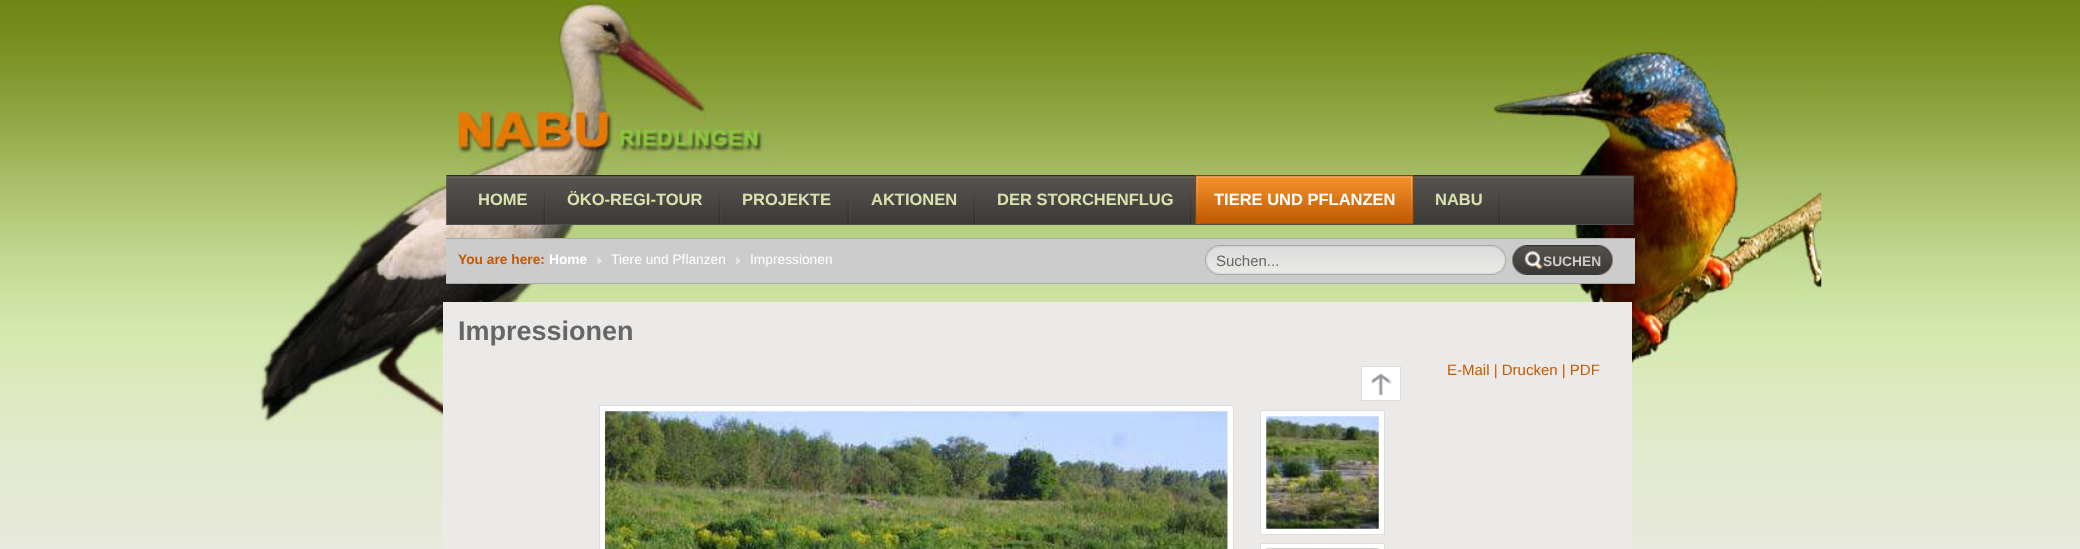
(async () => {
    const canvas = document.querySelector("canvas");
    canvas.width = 2080;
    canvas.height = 549;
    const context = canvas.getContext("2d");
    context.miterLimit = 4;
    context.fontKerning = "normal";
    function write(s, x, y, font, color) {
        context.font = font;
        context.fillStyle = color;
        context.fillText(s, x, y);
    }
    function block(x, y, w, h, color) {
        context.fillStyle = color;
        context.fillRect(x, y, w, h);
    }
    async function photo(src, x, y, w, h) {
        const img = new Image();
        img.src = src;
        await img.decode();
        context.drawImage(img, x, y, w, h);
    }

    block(0, 0, 2080, 549, "rgb(255, 255, 255)");
    await photo("media/1.png", 0, 0, 2080, 549);
    await photo("media/2.png", 259, 0, 1563, 500);
    await photo("media/3.png", 446, 175, 1188, 49);
    block(446, 224, 1188, 1, "rgb(79, 79, 79)");
    await photo("media/4.png", 543, 190, 3, 34);
    write("HOME", 478, 205, "bold 16.5px Liberation Sans", "rgb(216, 227, 174)");
    await photo("media/4.png", 718, 190, 3, 34);
    write("ÖKO-REGI-TOUR", 567, 205, "bold 16.5px Liberation Sans", "rgb(216, 227, 174)");
    await photo("media/5.png", 847, 198, 3, 26);
    write("PROJEKTE", 742, 205, "bold 16.5px Liberation Sans", "rgb(216, 227, 174)");
    await photo("media/4.png", 973, 190, 3, 34);
    write("AKTIONEN", 871, 205, "bold 16.5px Liberation Sans", "rgb(216, 227, 174)");
    await photo("media/6.png", 1190, 190, 3, 34);
    write("DER STORCHENFLUG", 997, 205, "bold 16.5px Liberation Sans", "rgb(216, 227, 174)");
    await photo("media/7.png", 1195, 175, 219, 49);
    await photo("media/8.png", 1195, 176, 7, 48);
    write("TIERE UND PFLANZEN", 1214, 205, "bold 16.5px Liberation Sans", "rgb(255, 255, 255)");
    await photo("media/4.png", 1498, 190, 3, 34);
    write("NABU", 1435, 205, "bold 16.5px Liberation Sans", "rgb(216, 227, 174)");
    block(446, 239, 1189, 44, "rgb(204, 204, 204)");
    block(446, 238, 1189, 1, "rgb(170, 170, 170)");
    block(446, 283, 1189, 1, "rgb(170, 170, 170)");
    write("You are here:", 458, 264, "bold 13.75px Liberation Sans", "rgb(197, 89, 1)");
    write("Home", 549, 264, "bold 13.75px Liberation Sans", "rgb(255, 255, 255)");
    await photo("media/9.png", 597, 257, 5, 7);
    write("Tiere und Pflanzen", 611, 264, "13.75px Liberation Sans", "rgb(255, 255, 255)");
    await photo("media/10.png", 736, 257, 4, 7);
    write("Impressionen", 750, 264, "13.75px Liberation Sans", "rgb(255, 255, 255)");
    await photo("media/11.png", 1205, 245, 302, 30);
    write("Suchen...", 1216, 266, "15px Liberation Sans", "rgb(102, 102, 102)");
    await photo("media/12.png", 1512, 245, 101, 30);
    write("SUCHEN", 1543, 266, "bold 13.75px Liberation Sans", "rgb(204, 204, 204)");
    block(443, 302, 1189, 247, "rgb(235, 234, 232)");
    write("Impressionen", 458, 340, "bold 27px Liberation Sans", "rgb(102, 102, 102)");
    context.fillStyle = "rgb(255, 255, 255)";
    context.beginPath();
    context.rect(599.5, 405.5, 634, 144);
    context.fill();
    context.strokeStyle = "rgb(221, 221, 221)";
    context.stroke();
    await photo("media/13.png", 605, 411, 623, 138);
    context.beginPath();
    context.rect(1361.5, 366.5, 39, 34);
    context.fill();
    context.stroke();
    await photo("media/14.png", 1371, 373, 21, 22);
    context.beginPath();
    context.rect(1260.5, 410.5, 124, 124);
    context.fill();
    context.stroke();
    await photo("media/15.png", 1266, 416, 113, 113);
    context.beginPath();
    context.rect(1260.5, 543.5, 124, 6);
    context.fill();
    context.stroke();
    await photo("media/16.png", 1266, 548, 113, 1);
    write("E-Mail | Drucken | PDF", 1447, 375, "15px Liberation Sans", "rgb(197, 89, 1)");
})();
